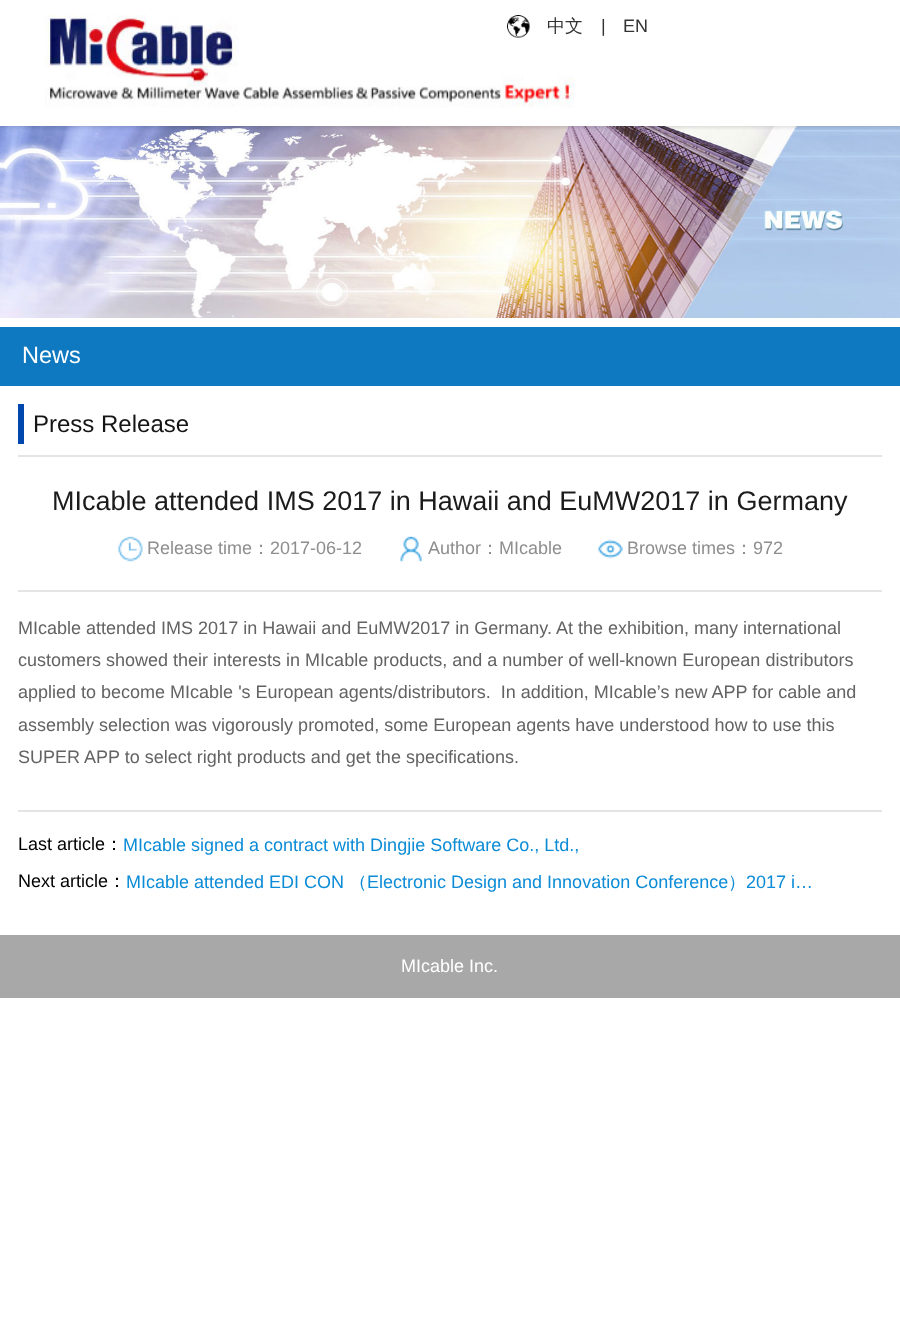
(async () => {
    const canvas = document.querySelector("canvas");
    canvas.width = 900;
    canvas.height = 1321;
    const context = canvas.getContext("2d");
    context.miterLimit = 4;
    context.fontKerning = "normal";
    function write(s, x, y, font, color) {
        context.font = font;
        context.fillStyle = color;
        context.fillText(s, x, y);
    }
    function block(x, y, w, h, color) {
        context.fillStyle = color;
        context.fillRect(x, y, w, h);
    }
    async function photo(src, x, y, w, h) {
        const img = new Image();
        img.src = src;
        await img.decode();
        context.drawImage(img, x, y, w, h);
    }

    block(0, 0, 900, 1321, "rgb(255, 255, 255)");
    await photo("media/3.png", 0, 126, 900, 192);
    context.fillStyle = "rgba(0, 0, 0, 0.1)";
    context.filter = "blur(1.5px)";
    context.beginPath();
    context.rect(0, 2, 900, 126);
    context.fill();
    context.filter = "none";
    block(0, 0, 900, 126, "rgb(255, 255, 255)");
    await photo("media/1.png", 45, 15, 529, 93);
    await photo("media/2.png", 507, 15, 23, 23);
    write("中文", 547, 32, "500 18px WenQuanYi Zen Hei", "rgb(51, 51, 51)");
    write("|", 601, 32, "18px Liberation Sans", "rgb(51, 51, 51)");
    write("EN", 623, 32, "18px Liberation Sans", "rgb(51, 51, 51)");
    block(0, 327, 900, 59, "rgb(14, 120, 193)");
    write("News", 22, 363, "23.5px Liberation Sans", "rgb(255, 255, 255)");
    block(18, 455, 864, 2, "rgb(229, 229, 229)");
    block(18, 404, 6, 40, "rgb(1, 72, 174)");
    write("Press Release", 33, 432, "24px Liberation Sans", "rgb(21, 21, 21)");
    block(18, 590, 864, 2, "rgb(229, 229, 229)");
    write("MIcable attended IMS 2017 in Hawaii and EuMW2017 in Germany", 52, 510, "27px Liberation Sans", "rgb(27, 27, 27)");
    await photo("media/4.png", 118, 536, 25, 26);
    write("Release time", 147, 554, "18px Liberation Sans", "rgb(142, 142, 142)");
    write("：", 252, 554, "500 18px WenQuanYi Zen Hei", "rgb(142, 142, 142)");
    write("2017-06-12", 270, 554, "18px Liberation Sans", "rgb(142, 142, 142)");
    await photo("media/5.png", 400, 536, 22, 26);
    write("Author", 428, 554, "18px Liberation Sans", "rgb(142, 142, 142)");
    write("：", 481, 554, "500 18px WenQuanYi Zen Hei", "rgb(142, 142, 142)");
    write("MIcable", 499, 554, "18px Liberation Sans", "rgb(142, 142, 142)");
    await photo("media/6.png", 598, 539, 25, 20);
    write("Browse times", 627, 554, "18px Liberation Sans", "rgb(142, 142, 142)");
    write("：", 735, 554, "500 18px WenQuanYi Zen Hei", "rgb(142, 142, 142)");
    write("972", 753, 554, "18px Liberation Sans", "rgb(142, 142, 142)");
    write("MIcable attended IMS 2017 in Hawaii and EuMW2017 in Germany. At the exhibition, many international", 18, 634, "18px Liberation Sans", "rgb(99, 99, 99)");
    write("customers showed their interests in MIcable products, and a number of well-known European distributors", 18, 666, "18px Liberation Sans", "rgb(99, 99, 99)");
    write("applied to become MIcable 's European agents/distributors.  In addition, MIcable’s new APP for cable and", 18, 698, "18px Liberation Sans", "rgb(99, 99, 99)");
    write("assembly selection was vigorously promoted, some European agents have understood how to use this", 18, 731, "18px Liberation Sans", "rgb(99, 99, 99)");
    write("SUPER APP to select right products and get the specifications.", 18, 763, "18px Liberation Sans", "rgb(99, 99, 99)");
    block(18, 810, 864, 2, "rgb(228, 228, 228)");
    write("Last article", 18, 850, "18px Liberation Sans", "rgb(0, 0, 0)");
    write("：", 105, 850, "500 18px WenQuanYi Zen Hei", "rgb(0, 0, 0)");
    write("MIcable signed a contract with Dingjie Software Co., Ltd.,", 123, 851, "18px Liberation Sans", "rgb(12, 140, 215)");
    write("Next article", 18, 887, "18px Liberation Sans", "rgb(0, 0, 0)");
    write("：", 108, 887, "500 18px WenQuanYi Zen Hei", "rgb(0, 0, 0)");
    write("MIcable attended EDI CON", 126, 888, "18px Liberation Sans", "rgb(12, 140, 215)");
    write("（", 349, 888, "500 18px WenQuanYi Zen Hei", "rgb(12, 140, 215)");
    write("Electronic Design and Innovation Conference", 367, 888, "18px Liberation Sans", "rgb(12, 140, 215)");
    write("）", 728, 888, "500 18px WenQuanYi Zen Hei", "rgb(12, 140, 215)");
    write("2017 i…", 746, 888, "18px Liberation Sans", "rgb(12, 140, 215)");
    block(0, 935, 900, 63, "rgb(168, 168, 168)");
    write("MIcable Inc.", 401, 972, "18px Liberation Sans", "rgb(255, 255, 255)");
})();
